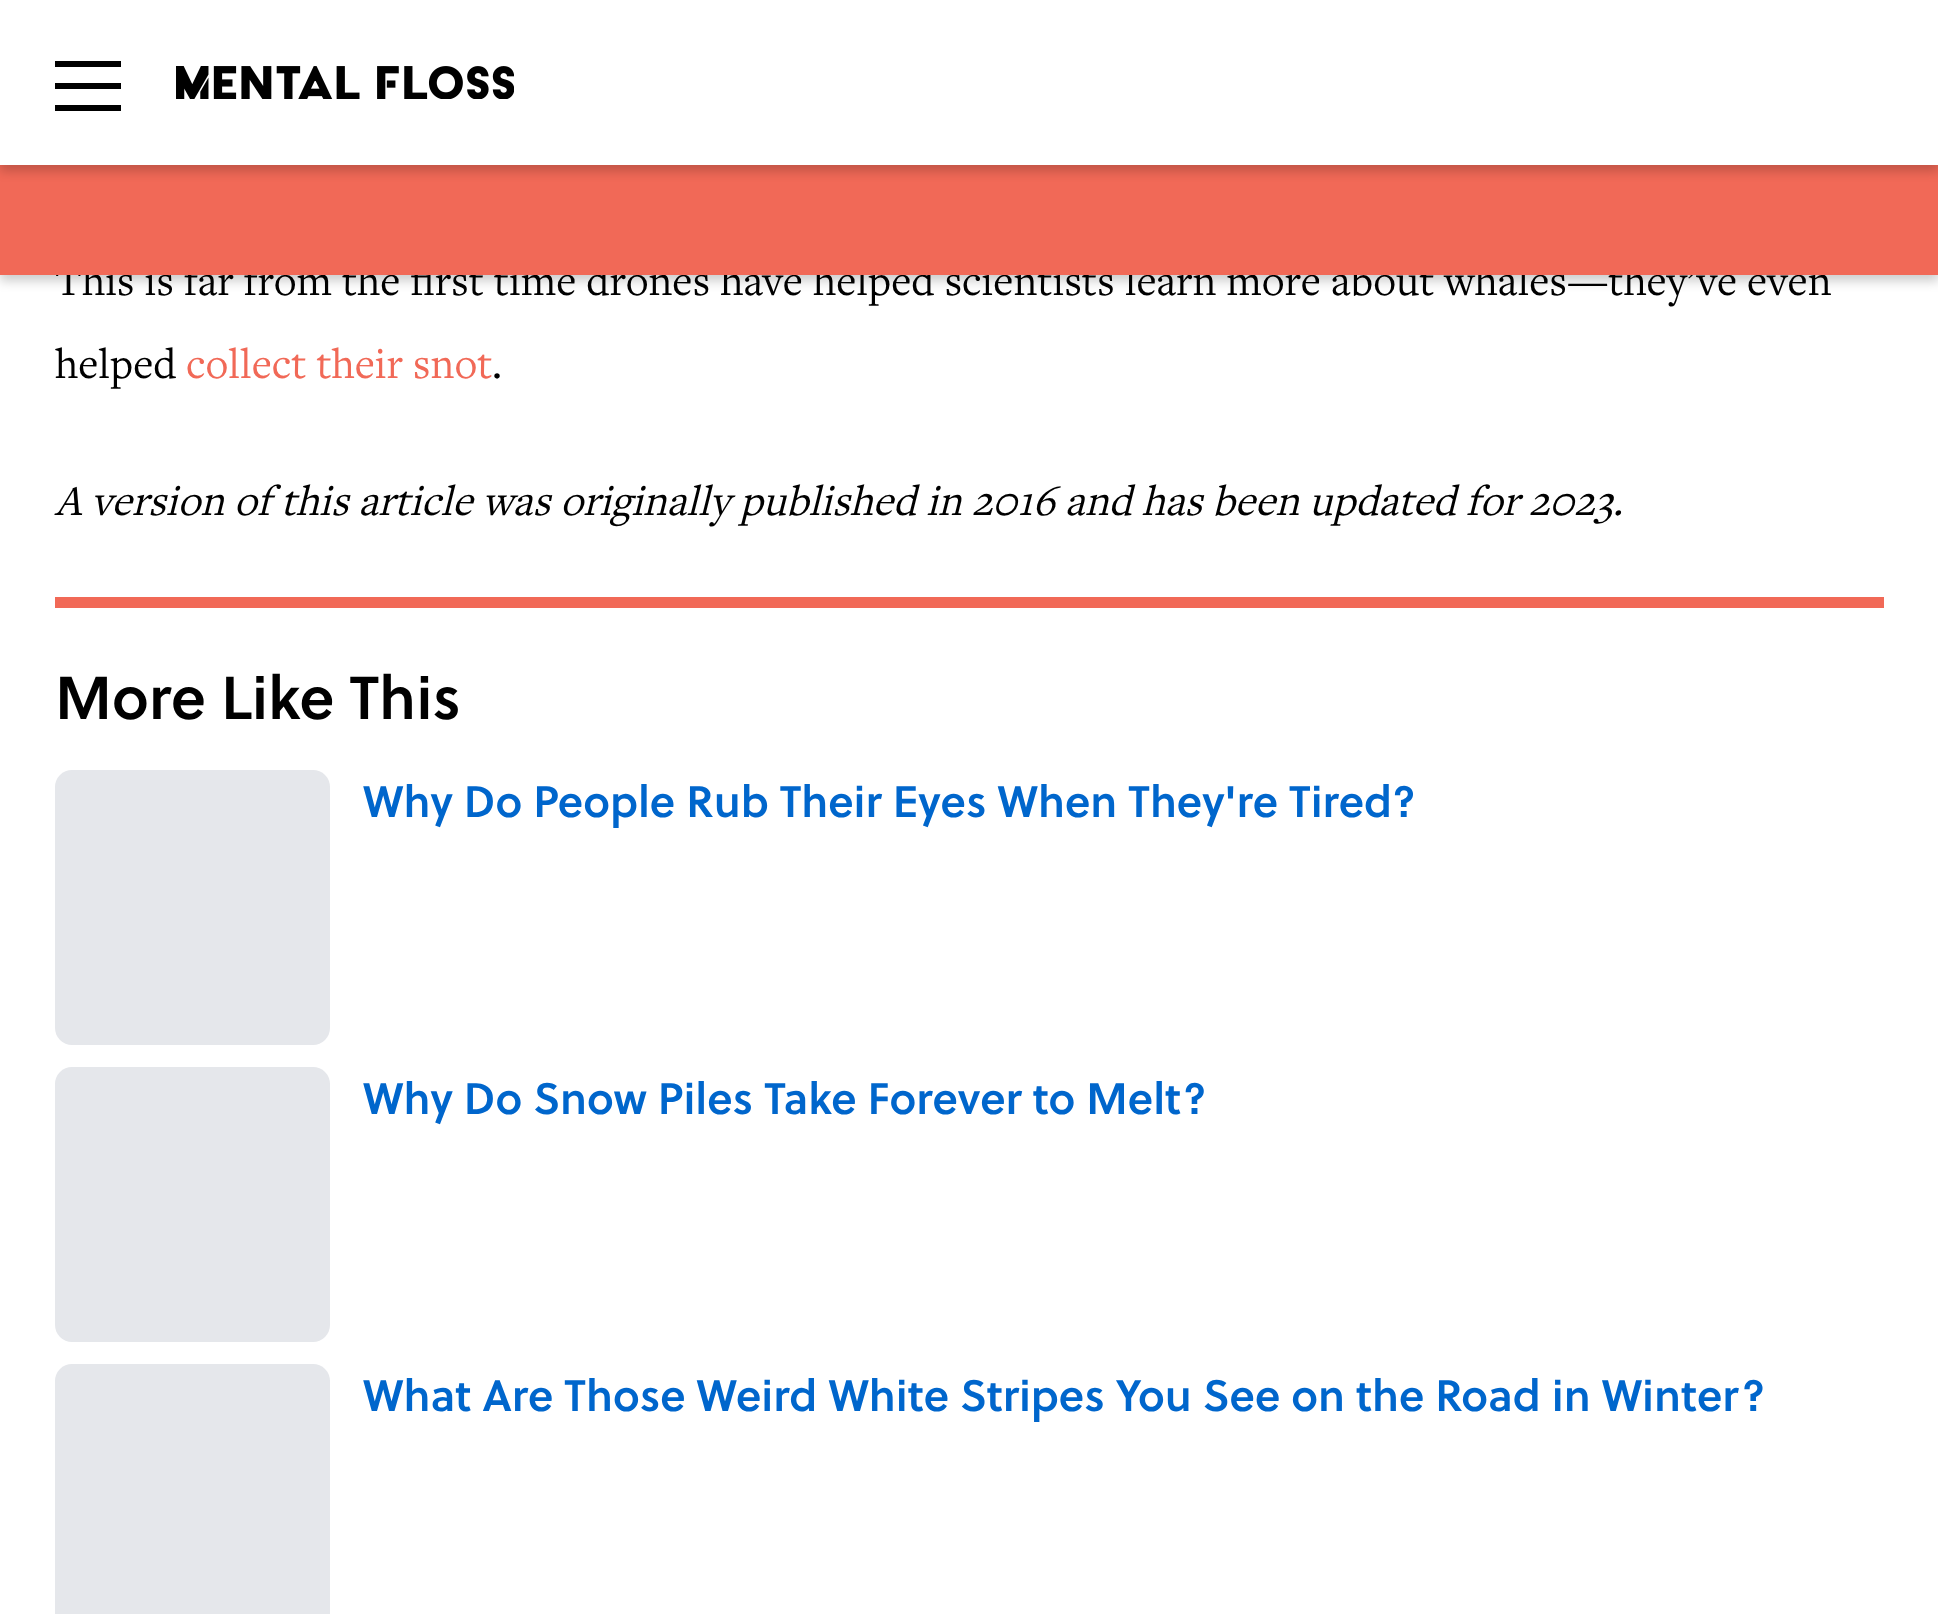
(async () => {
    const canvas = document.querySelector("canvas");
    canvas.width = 1938;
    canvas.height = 1614;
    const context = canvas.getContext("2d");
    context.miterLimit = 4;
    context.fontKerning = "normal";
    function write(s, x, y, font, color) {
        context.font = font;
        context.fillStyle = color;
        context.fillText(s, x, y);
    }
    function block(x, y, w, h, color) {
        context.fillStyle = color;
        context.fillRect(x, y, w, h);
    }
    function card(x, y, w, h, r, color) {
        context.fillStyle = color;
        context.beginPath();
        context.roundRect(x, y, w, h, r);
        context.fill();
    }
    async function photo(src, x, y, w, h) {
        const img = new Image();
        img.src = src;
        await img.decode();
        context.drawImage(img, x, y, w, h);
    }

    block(0, 0, 1938, 1614, "rgb(255, 255, 255)");
    context.fillStyle = "rgba(0, 0, 0, 0.2)";
    context.filter = "blur(5.5px)";
    context.beginPath();
    context.rect(0, 171, 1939, 110);
    context.fill();
    context.filter = "none";
    write("This is far from the first time drones have helped scientists learn more about whales—they’ve even", 55, 295, "44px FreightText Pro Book", "rgb(0, 0, 0)");
    block(0, 165, 1938, 110, "rgb(241, 105, 87)");
    context.fillStyle = "rgba(0, 0, 0, 0.2)";
    context.filter = "blur(5.5px)";
    context.beginPath();
    context.rect(0, 6, 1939, 165);
    context.fill();
    context.filter = "none";
    block(0, 0, 1938, 165, "rgb(255, 255, 255)");
    block(55, 61, 66, 6, "rgb(0, 0, 0)");
    block(55, 83, 66, 6, "rgb(0, 0, 0)");
    block(55, 105, 66, 6, "rgb(0, 0, 0)");
    await photo("media/1.png", 176, 66, 338, 33);
    write("helped", 55, 378, "44px FreightText Pro Book", "rgb(0, 0, 0)");
    write("collect their snot", 186, 378, "44px FreightText Pro Book", "rgb(241, 105, 87)");
    write(".", 492, 378, "44px FreightText Pro Book", "rgb(0, 0, 0)");
    write("A version of this article was originally published in 2016 and has been updated for 2023.", 55, 515, "italic 44px FreightText Pro Book", "rgb(0, 0, 0)");
    block(55, 597, 1829, 11, "rgb(241, 105, 87)");
    write("More Like This", 55, 719, "600 60.5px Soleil", "rgb(0, 0, 0)");
    card(55, 770, 275, 275, 17, "rgb(229, 231, 235)");
    write("Why Do People Rub Their Eyes When They're Tired?", 363, 817, "600 44px Soleil", "rgb(0, 102, 204)");
    card(55, 1067, 275, 275, 17, "rgb(229, 231, 235)");
    write("Why Do Snow Piles Take Forever to Melt?", 363, 1114, "600 44px Soleil", "rgb(0, 102, 204)");
    card(55, 1364, 275, 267, 17, "rgb(229, 231, 235)");
    write("What Are Those Weird White Stripes You See on the Road in Winter?", 363, 1411, "600 44px Soleil", "rgb(0, 102, 204)");
})();
